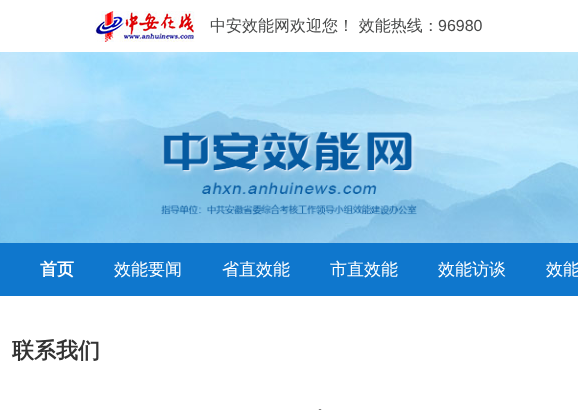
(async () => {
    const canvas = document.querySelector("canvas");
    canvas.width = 578;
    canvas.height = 410;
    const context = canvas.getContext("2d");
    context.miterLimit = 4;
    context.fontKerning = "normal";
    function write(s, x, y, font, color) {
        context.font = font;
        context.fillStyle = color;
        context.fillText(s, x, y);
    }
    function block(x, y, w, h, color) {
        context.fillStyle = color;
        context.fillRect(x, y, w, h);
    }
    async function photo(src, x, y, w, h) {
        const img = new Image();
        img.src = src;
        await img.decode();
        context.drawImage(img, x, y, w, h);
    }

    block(0, 0, 578, 410, "rgb(255, 255, 255)");
    await photo("media/1.png", 95, 11, 100, 31);
    write("中安效能网欢迎您！ 效能热线：", 210, 31, "500 16px WenQuanYi Zen Hei", "rgb(73, 74, 74)");
    write("96980", 438, 31, "16px Liberation Sans", "rgb(73, 74, 74)");
    await photo("media/2.png", 0, 52, 578, 191);
    await photo("media/3.png", 161, 131, 256, 84);
    block(0, 243, 578, 53, "rgb(15, 119, 205)");
    write("首页", 40, 275, "bold 17px WenQuanYi Zen Hei", "rgb(255, 255, 255)");
    write("效能要闻", 114, 275, "500 17px WenQuanYi Zen Hei", "rgb(255, 255, 255)");
    write("省直效能", 222, 275, "500 17px WenQuanYi Zen Hei", "rgb(255, 255, 255)");
    write("市直效能", 330, 275, "500 17px WenQuanYi Zen Hei", "rgb(255, 255, 255)");
    write("效能访谈", 438, 275, "500 17px WenQuanYi Zen Hei", "rgb(255, 255, 255)");
    write("效能", 546, 275, "500 17px WenQuanYi Zen Hei", "rgb(255, 255, 255)");
    write("联系我们", 12, 358, "bold 22px WenQuanYi Zen Hei", "rgb(51, 51, 51)");
    await photo("media/4.png", 318, 409, 4, 1);
})();
